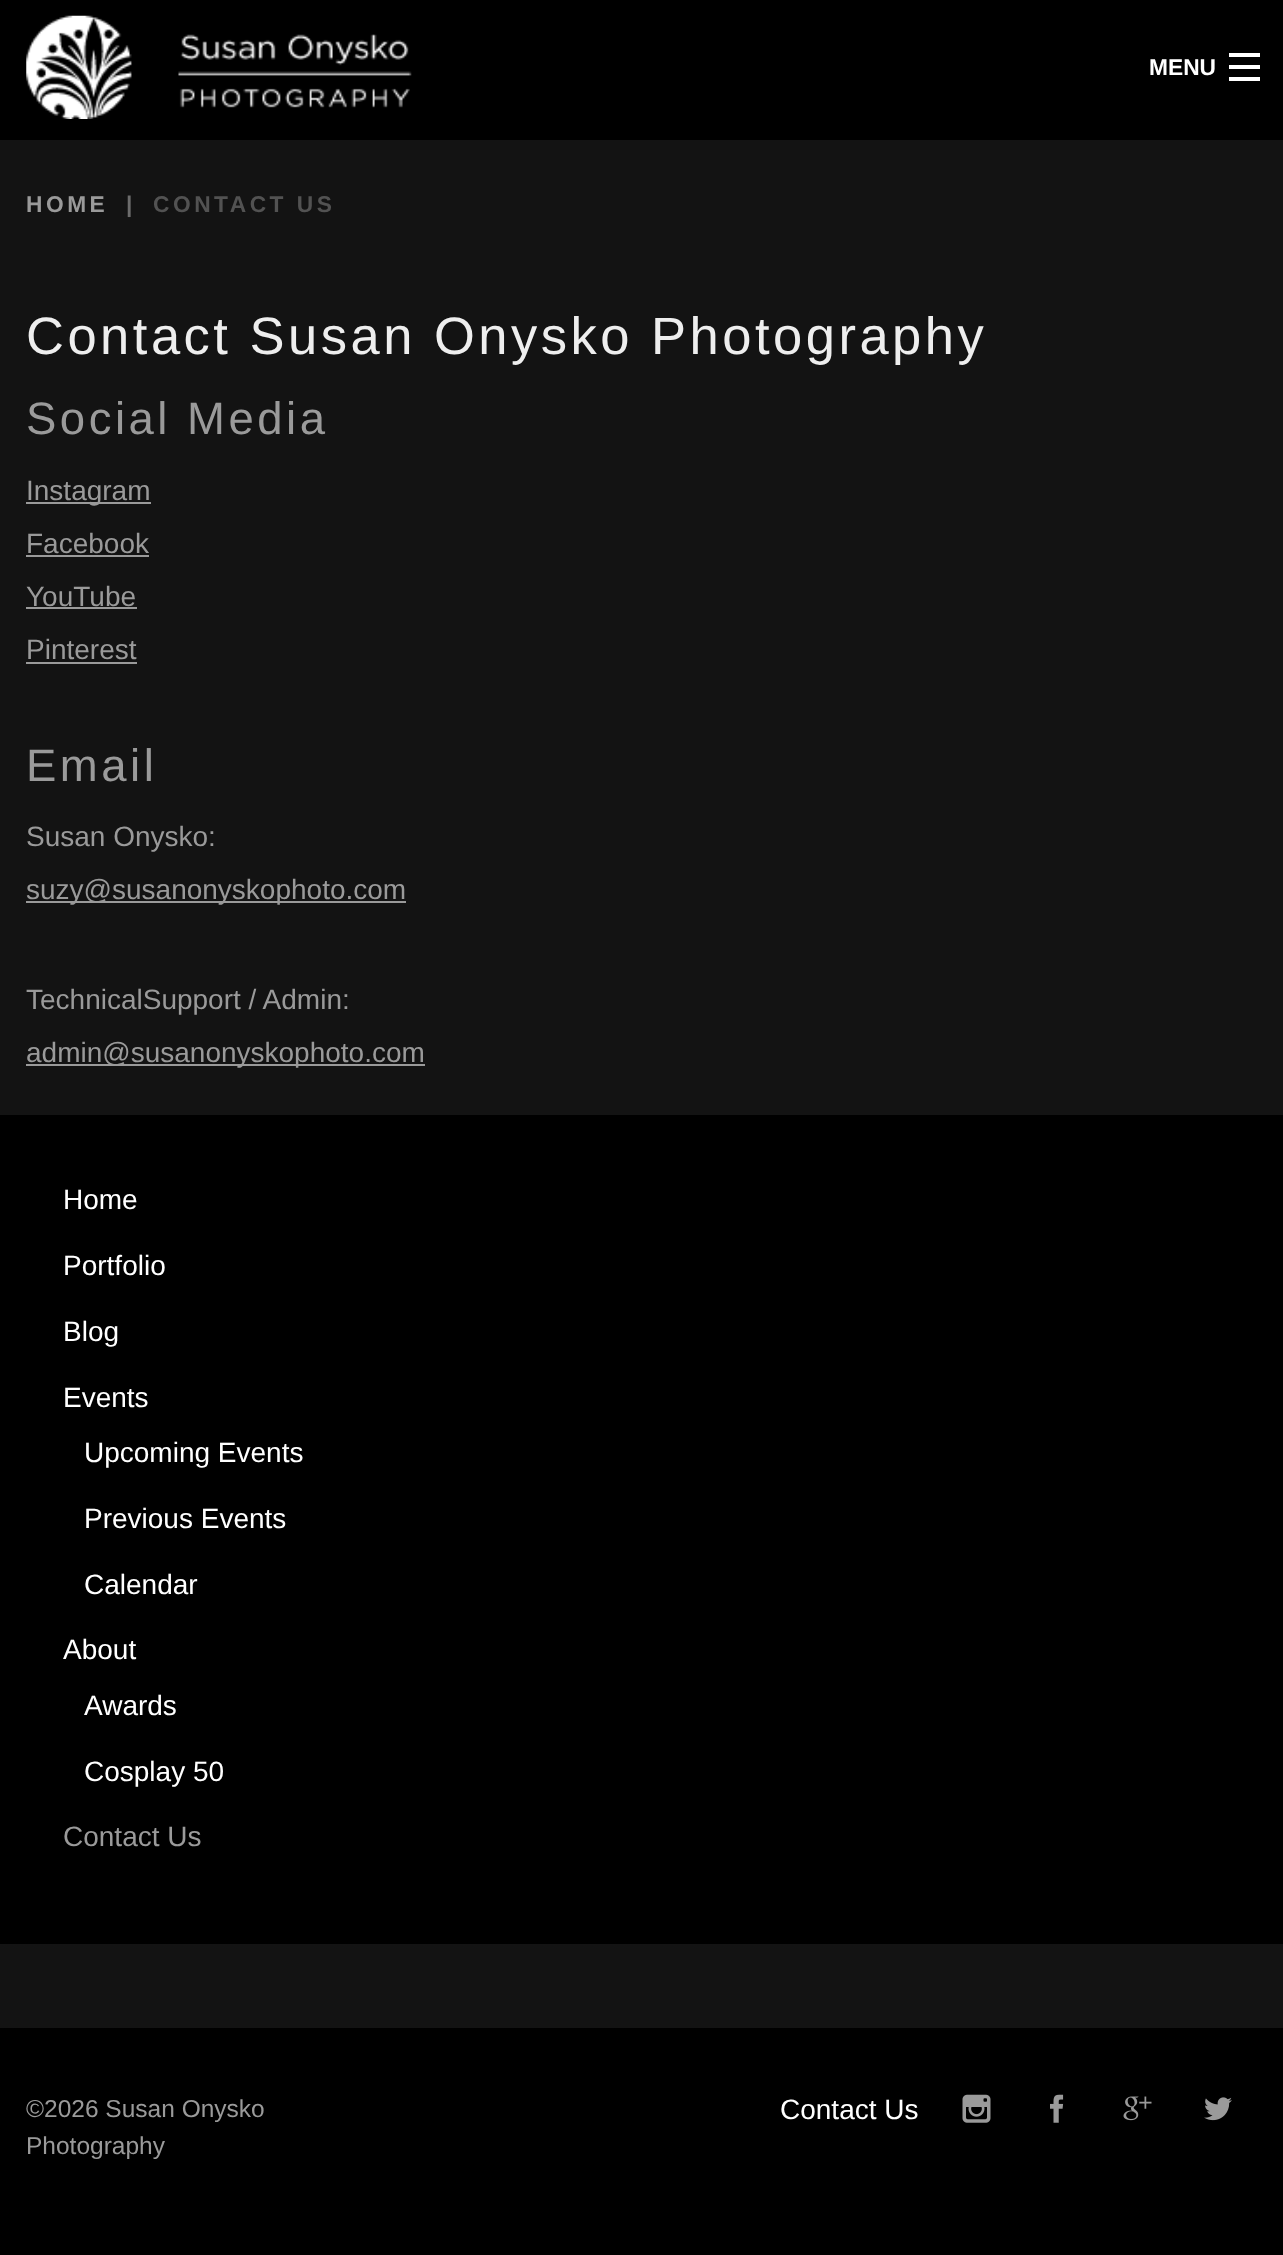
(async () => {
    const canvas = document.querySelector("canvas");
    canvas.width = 1283;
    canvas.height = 2255;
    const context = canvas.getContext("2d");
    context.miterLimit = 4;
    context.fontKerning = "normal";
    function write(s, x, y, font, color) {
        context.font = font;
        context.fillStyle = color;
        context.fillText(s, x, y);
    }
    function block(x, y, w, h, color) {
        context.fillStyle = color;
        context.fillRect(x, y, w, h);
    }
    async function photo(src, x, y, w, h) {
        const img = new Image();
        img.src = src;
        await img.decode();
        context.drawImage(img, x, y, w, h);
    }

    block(0, 0, 1283, 2255, "rgb(19, 19, 19)");
    block(0, 0, 1283, 140, "rgb(0, 0, 0)");
    await photo("media/1.png", 26, 15, 386, 104);
    write("MENU", 1149, 75, "bold 22.75px Liberation Sans", "rgb(255, 255, 255)");
    block(1229, 77, 31, 4, "rgb(255, 255, 255)");
    block(1229, 65, 31, 4, "rgb(255, 255, 255)");
    block(1229, 53, 31, 4, "rgb(255, 255, 255)");
    context.letterSpacing = "3.5px";
    write("HOME", 26, 212, "bold 22.75px Liberation Sans", "rgb(154, 154, 154)");
    write("|", 126, 212, "bold 22.75px Liberation Sans", "rgb(108, 108, 108)");
    write("CONTACT US", 153, 212, "bold 22.75px Liberation Sans", "rgb(82, 82, 82)");
    write("Contact Susan Onysko Photography", 26, 354, "52.5px Liberation Sans", "rgb(238, 238, 238)");
    write("Social Media", 26, 434, "45.5px Liberation Sans", "rgb(154, 154, 154)");
    block(26, 502, 125, 2, "rgb(154, 154, 154)");
    context.letterSpacing = "0px";
    write("Instagram", 26, 500, "28px Liberation Sans", "rgb(154, 154, 154)");
    write("Facebook", 26, 553, "28px Liberation Sans", "rgb(154, 154, 154)");
    block(26, 555, 123, 2, "rgb(154, 154, 154)");
    write("YouTube", 26, 606, "28px Liberation Sans", "rgb(154, 154, 154)");
    block(26, 607, 111, 2, "rgb(154, 154, 154)");
    write("Pinterest", 26, 659, "28px Liberation Sans", "rgb(154, 154, 154)");
    block(26, 662, 111, 2, "rgb(154, 154, 154)");
    context.letterSpacing = "3.5px";
    write("Email", 26, 781, "45.5px Liberation Sans", "rgb(154, 154, 154)");
    context.letterSpacing = "0px";
    write("Susan Onysko:", 26, 846, "28px Liberation Sans", "rgb(154, 154, 154)");
    block(26, 901, 380, 2, "rgb(154, 154, 154)");
    write("suzy@susanonyskophoto.com", 26, 899, "28px Liberation Sans", "rgb(154, 154, 154)");
    write("TechnicalSupport / Admin:", 26, 1009, "28px Liberation Sans", "rgb(154, 154, 154)");
    block(26, 1064, 399, 2, "rgb(154, 154, 154)");
    write("admin@susanonyskophoto.com", 26, 1062, "28px Liberation Sans", "rgb(154, 154, 154)");
    block(0, 1115, 1283, 829, "rgb(0, 0, 0)");
    write("Home", 63, 1209, "28px Liberation Sans", "rgb(255, 255, 255)");
    write("Portfolio", 63, 1275, "28px Liberation Sans", "rgb(255, 255, 255)");
    write("Blog", 63, 1341, "28px Liberation Sans", "rgb(255, 255, 255)");
    write("Events", 63, 1407, "28px Liberation Sans", "rgb(255, 255, 255)");
    write("Upcoming Events", 84, 1462, "28px Liberation Sans", "rgb(255, 255, 255)");
    write("Previous Events", 84, 1528, "28px Liberation Sans", "rgb(255, 255, 255)");
    write("Calendar", 84, 1594, "28px Liberation Sans", "rgb(255, 255, 255)");
    write("About", 63, 1659, "28px Liberation Sans", "rgb(255, 255, 255)");
    write("Awards", 84, 1715, "28px Liberation Sans", "rgb(255, 255, 255)");
    write("Cosplay 50", 84, 1781, "28px Liberation Sans", "rgb(255, 255, 255)");
    write("Contact Us", 63, 1846, "28px Liberation Sans", "rgb(154, 154, 154)");
    block(0, 2028, 1283, 227, "rgb(0, 0, 0)");
    write("©2026 Susan Onysko", 26, 2117, "24.5px Liberation Sans", "rgb(154, 154, 154)");
    write("Photography", 26, 2154, "24.5px Liberation Sans", "rgb(154, 154, 154)");
    write("Contact Us", 780, 2119, "28px Liberation Sans", "rgb(255, 255, 255)");
    await photo("media/2.png", 962, 2094, 29, 29);
    await photo("media/3.png", 1050, 2094, 14, 29);
    await photo("media/4.png", 1123, 2096, 29, 25);
    await photo("media/5.png", 1204, 2097, 28, 24);
})();
